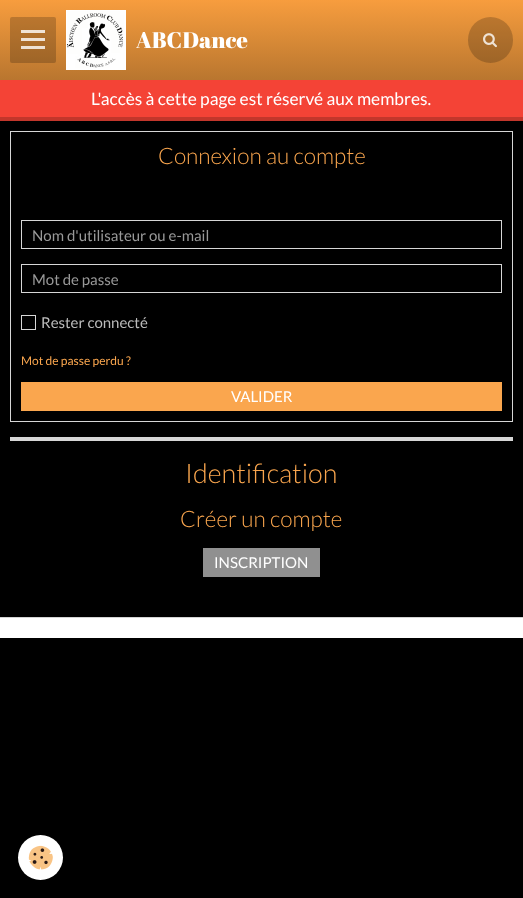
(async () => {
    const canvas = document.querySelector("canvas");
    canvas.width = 523;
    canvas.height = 898;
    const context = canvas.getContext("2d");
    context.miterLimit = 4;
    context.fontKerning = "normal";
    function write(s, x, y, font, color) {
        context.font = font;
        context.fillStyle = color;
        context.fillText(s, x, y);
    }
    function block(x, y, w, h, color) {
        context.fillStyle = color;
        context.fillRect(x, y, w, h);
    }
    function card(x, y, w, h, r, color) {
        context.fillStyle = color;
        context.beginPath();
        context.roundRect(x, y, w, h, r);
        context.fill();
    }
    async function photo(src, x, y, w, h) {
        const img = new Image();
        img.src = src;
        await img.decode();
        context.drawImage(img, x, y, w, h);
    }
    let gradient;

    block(0, 0, 523, 898, "rgb(0, 0, 0)");
    gradient = context.createLinearGradient(262, 80, 262, 0);
    gradient.addColorStop(0, "rgb(185, 118, 47)");
    gradient.addColorStop(1, "rgb(247, 157, 62)");
    context.fillStyle = gradient;
    context.fillRect(0, 0, 523, 80);
    card(10, 17, 46, 46, 2, "rgba(0, 0, 0, 0.2)");
    block(21, 38, 24, 3, "rgb(239, 226, 213)");
    block(21, 30, 24, 3, "rgb(240, 227, 213)");
    block(21, 46, 24, 3, "rgb(238, 225, 212)");
    await photo("media/1.png", 66, 10, 60, 60);
    write("ABCDance", 136, 48, "22.6px Abril Fatface", "rgb(255, 255, 255)");
    card(468, 17, 45, 46, 22.5, "rgba(0, 0, 0, 0.2)");
    await photo("media/2.png", 483, 33, 14, 15);
    block(0, 80, 523, 37, "rgb(244, 67, 54)");
    block(0, 117, 523, 4, "rgb(195, 54, 43)");
    write("L'accès à cette page est réservé aux membres.", 91, 105, "17.3px Lato", "rgb(255, 255, 255)");
    context.strokeStyle = "rgb(214, 214, 214)";
    context.strokeRect(10.5, 131.5, 502, 290);
    write("Connexion au compte", 158, 164, "300 22.6px Lato", "rgb(250, 166, 78)");
    context.strokeRect(21.5, 220.5, 480, 28);
    write("Nom d'utilisateur ou e-mail", 32, 241, "15px Lato", "rgb(153, 153, 153)");
    context.strokeRect(21.5, 264.5, 480, 28);
    write("Mot de passe", 32, 285, "15px Lato", "rgb(153, 153, 153)");
    context.strokeRect(21.5, 315.5, 14, 14);
    write("Rester connecté", 41, 328, "15px Lato", "rgb(188, 188, 188)");
    write("Mot de passe perdu ?", 21, 365, "12px Lato", "rgb(250, 166, 78)");
    block(21, 382, 481, 29, "rgb(250, 166, 78)");
    write("VALIDER", 231, 402, "15px Lato", "rgb(255, 255, 255)");
    block(10, 437, 503, 4, "rgb(214, 214, 214)");
    write("Identification", 185, 483, "300 27px Lato", "rgb(250, 166, 78)");
    write("Créer un compte", 180, 527, "300 22.6px Lato", "rgb(250, 166, 78)");
    block(203, 548, 117, 29, "rgb(144, 144, 144)");
    write("INSCRIPTION", 214, 568, "15px Lato", "rgb(255, 255, 255)");
    block(0, 618, 523, 20, "rgb(255, 255, 255)");
    block(0, 617, 523, 1, "rgb(212, 212, 212)");
    context.fillStyle = "rgb(255, 255, 255)";
    context.beginPath();
    context.arc(40.5, 857.5, 22.5, 0, Math.PI * 2);
    context.fill();
    await photo("media/3.png", 28, 845, 25, 25);
})();
